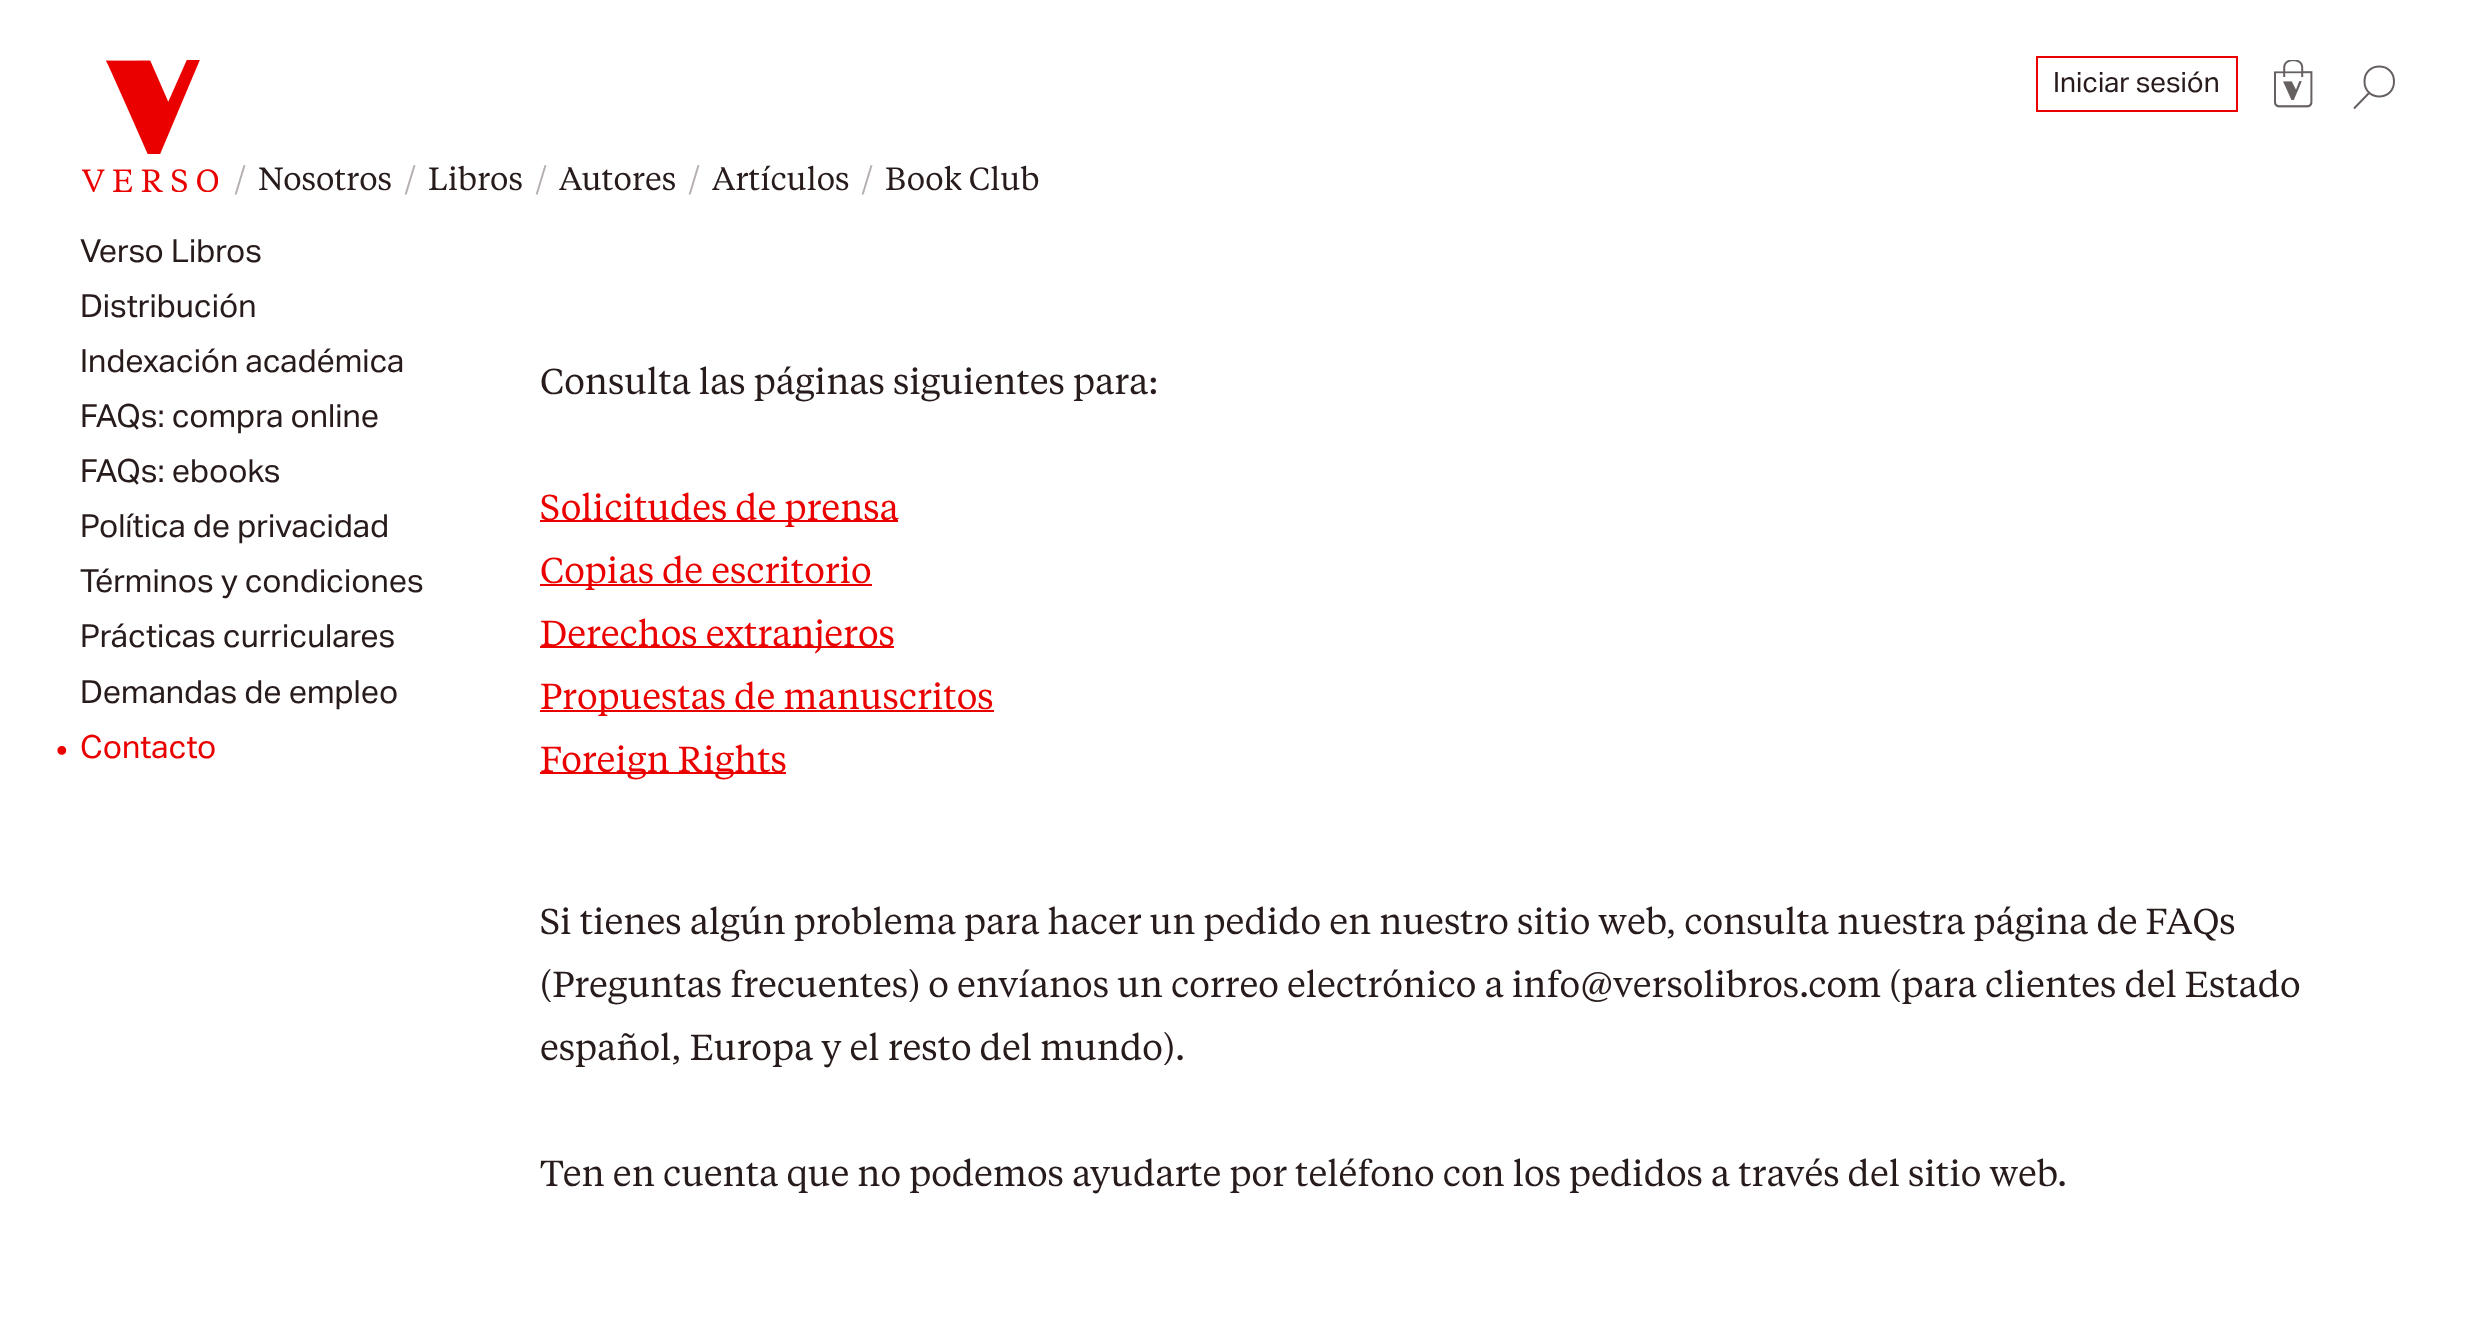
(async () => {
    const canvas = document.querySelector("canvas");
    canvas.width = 2476;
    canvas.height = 1322;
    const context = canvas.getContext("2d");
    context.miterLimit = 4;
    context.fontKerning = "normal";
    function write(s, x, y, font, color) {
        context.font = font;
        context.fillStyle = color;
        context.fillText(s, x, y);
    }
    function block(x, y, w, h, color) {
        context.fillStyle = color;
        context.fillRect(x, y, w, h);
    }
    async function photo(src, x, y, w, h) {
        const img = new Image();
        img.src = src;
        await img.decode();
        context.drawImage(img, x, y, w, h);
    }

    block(0, 0, 2476, 1322, "rgb(255, 255, 255)");
    context.strokeStyle = "rgb(235, 0, 0)";
    context.lineWidth = 2;
    context.strokeRect(2037, 57, 200, 54);
    write("Iniciar sesión", 2053, 92, "28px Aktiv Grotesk", "rgb(39, 27, 27)");
    await photo("media/1.png", 2274, 60, 39, 48);
    context.beginPath();
    context.moveTo(2370, 92);
    context.lineTo(2354, 108.5);
    context.moveTo(2394, 81.5);
    context.bezierCurveTo(2394, 101.5, 2364.5, 101.5, 2364.5, 81.5);
    context.bezierCurveTo(2364.5, 61.5, 2394, 61.5, 2394, 81.5);
    context.closePath();
    context.strokeStyle = "rgb(102, 96, 96)";
    context.stroke();
    await photo("media/2.png", 82, 60, 136, 132);
    write("/", 234, 190, "32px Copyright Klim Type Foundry", "rgb(182, 175, 175)");
    write("Nosotros", 258, 190, "32px Copyright Klim Type Foundry", "rgb(39, 27, 27)");
    write("/", 404, 190, "32px Copyright Klim Type Foundry", "rgb(182, 175, 175)");
    write("Libros", 428, 190, "32px Copyright Klim Type Foundry", "rgb(39, 27, 27)");
    write("/", 535, 190, "32px Copyright Klim Type Foundry", "rgb(182, 175, 175)");
    write("Autores", 559, 190, "32px Copyright Klim Type Foundry", "rgb(39, 27, 27)");
    write("/", 688, 190, "32px Copyright Klim Type Foundry", "rgb(182, 175, 175)");
    write("Artículos", 712, 190, "32px Copyright Klim Type Foundry", "rgb(39, 27, 27)");
    write("/", 861, 190, "32px Copyright Klim Type Foundry", "rgb(182, 175, 175)");
    write("Book Club", 885, 190, "32px Copyright Klim Type Foundry", "rgb(39, 27, 27)");
    write("Verso Libros", 80, 262, "32px Aktiv Grotesk", "rgb(39, 27, 27)");
    write("Distribución", 80, 317, "32px Aktiv Grotesk", "rgb(39, 27, 27)");
    write("Indexación académica", 80, 372, "32px Aktiv Grotesk", "rgb(39, 27, 27)");
    write("FAQs: compra online", 80, 427, "32px Aktiv Grotesk", "rgb(39, 27, 27)");
    write("FAQs: ebooks", 80, 482, "32px Aktiv Grotesk", "rgb(39, 27, 27)");
    write("Política de privacidad", 80, 537, "32px Aktiv Grotesk", "rgb(39, 27, 27)");
    write("Términos y condiciones", 80, 592, "32px Aktiv Grotesk", "rgb(39, 27, 27)");
    write("Prácticas curriculares", 80, 647, "32px Aktiv Grotesk", "rgb(39, 27, 27)");
    write("Demandas de empleo", 80, 703, "32px Aktiv Grotesk", "rgb(39, 27, 27)");
    write("•", 56, 762, "32px Aktiv Grotesk", "rgb(235, 0, 0)");
    write("Contacto", 80, 758, "32px Aktiv Grotesk", "rgb(235, 0, 0)");
    write("Consulta las páginas siguientes para:", 540, 394, "36px Copyright Klim Type Foundry", "rgb(39, 27, 27)");
    block(540, 520, 358, 2, "rgb(235, 0, 0)");
    write("Solicitudes de prensa", 540, 520, "36px Copyright Klim Type Foundry", "rgb(235, 0, 0)");
    block(540, 584, 332, 2, "rgb(235, 0, 0)");
    write("Copias de escritorio", 540, 583, "36px Copyright Klim Type Foundry", "rgb(235, 0, 0)");
    block(540, 646, 354, 2, "rgb(235, 0, 0)");
    write("Derechos extranjeros", 540, 646, "36px Copyright Klim Type Foundry", "rgb(235, 0, 0)");
    block(540, 710, 454, 2, "rgb(235, 0, 0)");
    write("Propuestas de manuscritos", 540, 709, "36px Copyright Klim Type Foundry", "rgb(235, 0, 0)");
    block(540, 772, 246, 2, "rgb(235, 0, 0)");
    write("Foreign Rights", 540, 772, "36px Copyright Klim Type Foundry", "rgb(235, 0, 0)");
    write("Si tienes algún problema para hacer un pedido en nuestro sitio web, consulta nuestra página de FAQs", 540, 934, "36px Copyright Klim Type Foundry", "rgb(39, 27, 27)");
    write("(Preguntas frecuentes) o envíanos un correo electrónico a info@versolibros.com (para clientes del Estado", 540, 997, "36px Copyright Klim Type Foundry", "rgb(39, 27, 27)");
    write("español, Europa y el resto del mundo).", 540, 1060, "36px Copyright Klim Type Foundry", "rgb(39, 27, 27)");
    write("Ten en cuenta que no podemos ayudarte por teléfono con los pedidos a través del sitio web.", 540, 1186, "36px Copyright Klim Type Foundry", "rgb(39, 27, 27)");
})();
